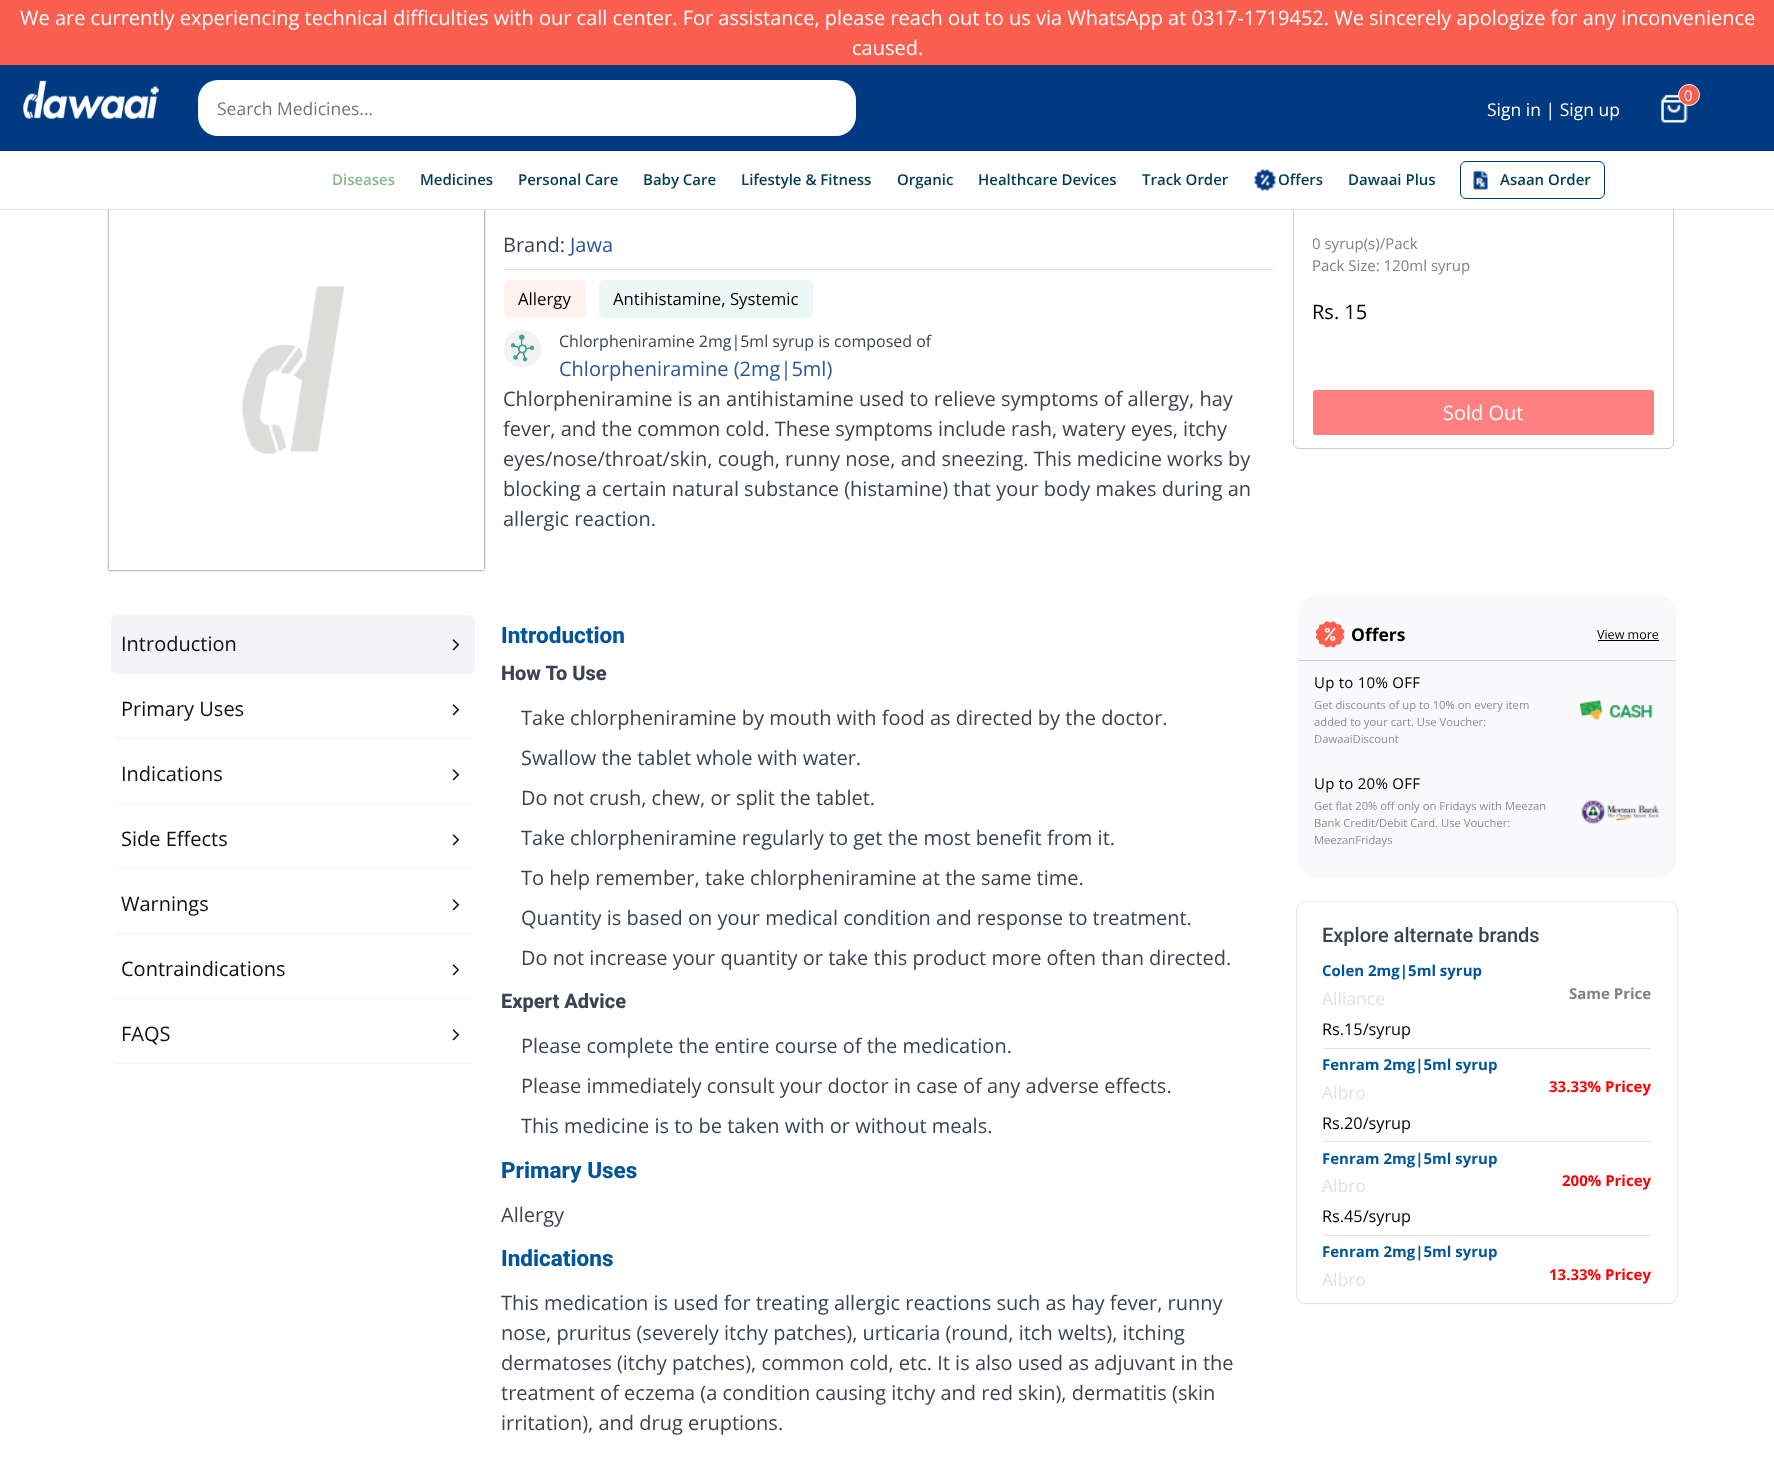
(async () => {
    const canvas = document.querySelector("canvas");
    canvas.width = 1774;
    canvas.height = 1465;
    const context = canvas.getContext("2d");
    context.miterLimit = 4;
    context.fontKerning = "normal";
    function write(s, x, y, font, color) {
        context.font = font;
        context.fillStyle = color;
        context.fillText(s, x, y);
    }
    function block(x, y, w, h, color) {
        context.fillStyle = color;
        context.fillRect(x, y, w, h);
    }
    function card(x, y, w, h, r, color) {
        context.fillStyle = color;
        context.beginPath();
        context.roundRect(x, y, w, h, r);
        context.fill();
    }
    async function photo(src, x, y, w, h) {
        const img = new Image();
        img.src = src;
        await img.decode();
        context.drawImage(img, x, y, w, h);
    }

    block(0, 0, 1774, 1465, "rgb(255, 255, 255)");
    block(0, 0, 1774, 65, "rgb(251, 95, 80)");
    write("We are currently experiencing technical difficulties with our call center. For assistance, please reach out to us via WhatsApp at 0317-1719452. We sincerely apologize for any inconvenience", 20, 25, "20px Open Sans", "rgb(255, 255, 255)");
    write("caused.", 852, 55, "20px Open Sans", "rgb(255, 255, 255)");
    block(0, 65, 1774, 86, "rgb(0, 59, 130)");
    await photo("media/1.png", 23, 80, 136, 39);
    card(198, 80, 658, 56, 20, "rgb(255, 255, 255)");
    write("Search Medicines...", 217, 115, "17.5px Open Sans", "rgb(117, 117, 117)");
    await photo("media/2.png", 1661, 94, 27, 29);
    context.fillStyle = "rgb(251, 95, 80)";
    context.beginPath();
    context.arc(1689, 95, 10.5, 0, Math.PI * 2);
    context.fill();
    context.strokeStyle = "rgb(255, 255, 255)";
    context.stroke();
    write("0", 1684, 101, "15px Open Sans", "rgb(255, 255, 255)");
    write("Sign in | Sign up", 1487, 116, "17.5px Open Sans", "rgb(255, 255, 255)");
    context.save();
    context.beginPath();
    context.moveTo(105, 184);
    context.lineTo(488, 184);
    context.lineTo(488, 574);
    context.lineTo(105, 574);
    context.closePath();
    context.moveTo(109, 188);
    context.lineTo(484, 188);
    context.lineTo(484, 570);
    context.lineTo(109, 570);
    context.closePath();
    context.clip("evenodd");
    context.fillStyle = "rgb(51, 51, 51)";
    context.filter = "blur(1px)";
    context.beginPath();
    context.rect(109, 188, 375, 382);
    context.fill();
    context.filter = "none";
    context.restore();
    context.beginPath();
    context.roundRect(1293.5, 188.5, 380, 260, 5.5);
    context.strokeStyle = "rgb(204, 204, 204)";
    context.stroke();
    block(107, 186, 1567, 23, "rgb(255, 255, 255)");
    block(0, 209, 1774, 1, "rgb(218, 222, 231)");
    write("Diseases", 332, 185, "600 15px Open Sans", "rgb(134, 185, 140)");
    write("Medicines", 420, 185, "600 15px Open Sans", "rgb(2, 61, 83)");
    write("Personal Care", 518, 185, "600 15px Open Sans", "rgb(2, 61, 83)");
    write("Baby Care", 643, 185, "600 15px Open Sans", "rgb(2, 61, 83)");
    write("Lifestyle & Fitness", 741, 185, "600 15px Open Sans", "rgb(2, 61, 83)");
    write("Organic", 897, 185, "600 15px Open Sans", "rgb(2, 61, 83)");
    write("Healthcare Devices", 978, 185, "600 15px Open Sans", "rgb(2, 61, 83)");
    write("Track Order", 1142, 185, "600 15px Open Sans", "rgb(2, 61, 83)");
    await photo("media/3.png", 1254, 169, 22, 22);
    write("Offers", 1278, 185, "600 15px Open Sans", "rgb(2, 61, 83)");
    write("Dawaai Plus", 1348, 185, "600 15px Open Sans", "rgb(2, 61, 83)");
    context.beginPath();
    context.roundRect(1460.5, 161.5, 144, 37, 5.5);
    context.strokeStyle = "rgb(0, 59, 130)";
    context.stroke();
    await photo("media/4.png", 1473, 170, 15, 21);
    write("Asaan Order", 1500, 185, "600 15px Open Sans", "rgb(2, 61, 83)");
    await photo("media/5.png", 108, 210, 376, 353);
    write("Brand:", 503, 252, "20px Open Sans", "rgb(59, 67, 81)");
    write("Jawa", 570, 252, "20px Open Sans", "rgb(42, 87, 155)");
    block(504, 269, 769, 1, "rgb(218, 222, 228)");
    card(504, 280, 82, 38, 5, "rgb(255, 241, 240)");
    write("Allergy", 518, 305, "16.75px Open Sans", "rgb(0, 0, 0)");
    card(599, 280, 214, 38, 5, "rgb(237, 247, 246)");
    write("Antihistamine, Systemic", 613, 305, "16.75px Open Sans", "rgb(0, 0, 0)");
    await photo("media/6.png", 504, 330, 37, 38);
    write("Chlorpheniramine 2mg|5ml syrup is composed of", 559, 347, "16px Open Sans", "rgb(59, 67, 81)");
    write("Chlorpheniramine (2mg|5ml)", 559, 376, "20px Open Sans", "rgb(42, 87, 155)");
    write("Chlorpheniramine is an antihistamine used to relieve symptoms of allergy, hay", 503, 406, "20px Open Sans", "rgb(59, 67, 81)");
    write("fever, and the common cold. These symptoms include rash, watery eyes, itchy", 503, 436, "20px Open Sans", "rgb(59, 67, 81)");
    write("eyes/nose/throat/skin, cough, runny nose, and sneezing. This medicine works by", 503, 466, "20px Open Sans", "rgb(59, 67, 81)");
    write("blocking a certain natural substance (histamine) that your body makes during an", 503, 496, "20px Open Sans", "rgb(59, 67, 81)");
    write("allergic reaction.", 503, 526, "20px Open Sans", "rgb(59, 67, 81)");
    context.save();
    context.beginPath();
    context.rect(1313, 201, 341, 234);
    context.clip();
    write("0 syrup(s)/Pack", 1312, 249, "15px Open Sans", "rgb(130, 130, 130)");
    context.restore();
    write("Pack Size: 120ml syrup", 1312, 271, "15px Open Sans", "rgb(130, 130, 130)");
    write("Rs. 15", 1312, 319, "20px Open Sans", "rgb(0, 0, 0)");
    card(1313, 390, 341, 45, 2.5, "rgb(255, 128, 128)");
    write("Sold Out", 1443, 420, "20px Open Sans", "rgb(255, 255, 255)");
    card(111, 615, 364, 59, 6, "rgb(243, 243, 247)");
    block(115, 673, 358, 1, "rgb(243, 243, 247)");
    write("Introduction", 121, 651, "20px Open Sans", "rgb(15, 15, 15)");
    await photo("media/7.png", 452, 639, 8, 12);
    block(115, 738, 358, 1, "rgb(243, 243, 247)");
    write("Primary Uses", 121, 716, "20px Open Sans", "rgb(15, 15, 15)");
    await photo("media/8.png", 452, 704, 8, 12);
    block(115, 803, 358, 1, "rgb(243, 243, 247)");
    write("Indications", 121, 781, "20px Open Sans", "rgb(15, 15, 15)");
    await photo("media/8.png", 452, 769, 8, 12);
    block(115, 868, 358, 1, "rgb(243, 243, 247)");
    write("Side Effects", 121, 846, "20px Open Sans", "rgb(15, 15, 15)");
    await photo("media/8.png", 452, 834, 8, 12);
    block(115, 933, 358, 1, "rgb(243, 243, 247)");
    write("Warnings", 121, 911, "20px Open Sans", "rgb(15, 15, 15)");
    await photo("media/8.png", 452, 899, 8, 12);
    block(115, 998, 358, 1, "rgb(243, 243, 247)");
    write("Contraindications", 121, 976, "20px Open Sans", "rgb(15, 15, 15)");
    await photo("media/8.png", 452, 964, 8, 12);
    block(115, 1063, 358, 1, "rgb(243, 243, 247)");
    write("FAQS", 121, 1041, "20px Open Sans", "rgb(15, 15, 15)");
    await photo("media/8.png", 452, 1029, 8, 12);
    write("Introduction", 501, 643, "800 22.5px Roboto", "rgb(1, 86, 155)");
    write("How To Use", 501, 680, "800 20px Roboto", "rgb(59, 67, 81)");
    write("Take chlorpheniramine by mouth with food as directed by the doctor.", 521, 725, "20px Open Sans", "rgb(59, 67, 81)");
    write("Swallow the tablet whole with water.", 521, 765, "20px Open Sans", "rgb(59, 67, 81)");
    write("Do not crush, chew, or split the tablet.", 521, 805, "20px Open Sans", "rgb(59, 67, 81)");
    write("Take chlorpheniramine regularly to get the most benefit from it.", 521, 845, "20px Open Sans", "rgb(59, 67, 81)");
    write("To help remember, take chlorpheniramine at the same time.", 521, 885, "20px Open Sans", "rgb(59, 67, 81)");
    write("Quantity is based on your medical condition and response to treatment.", 521, 925, "20px Open Sans", "rgb(59, 67, 81)");
    write("Do not increase your quantity or take this product more often than directed.", 521, 965, "20px Open Sans", "rgb(59, 67, 81)");
    write("Expert Advice", 501, 1008, "800 20px Roboto", "rgb(59, 67, 81)");
    write("Please complete the entire course of the medication.", 521, 1053, "20px Open Sans", "rgb(59, 67, 81)");
    write("Please immediately consult your doctor in case of any adverse effects.", 521, 1093, "20px Open Sans", "rgb(59, 67, 81)");
    write("This medicine is to be taken with or without meals.", 521, 1133, "20px Open Sans", "rgb(59, 67, 81)");
    write("Primary Uses", 501, 1178, "800 22.5px Roboto", "rgb(1, 86, 155)");
    write("Allergy", 501, 1222, "20px Open Sans", "rgb(59, 67, 81)");
    write("Indications", 501, 1266, "800 22.5px Roboto", "rgb(1, 86, 155)");
    write("This medication is used for treating allergic reactions such as hay fever, runny", 501, 1310, "20px Open Sans", "rgb(59, 67, 81)");
    write("nose, pruritus (severely itchy patches), urticaria (round, itch welts), itching", 501, 1340, "20px Open Sans", "rgb(59, 67, 81)");
    write("dermatoses (itchy patches), common cold, etc. It is also used as adjuvant in the", 501, 1370, "20px Open Sans", "rgb(59, 67, 81)");
    write("treatment of eczema (a condition causing itchy and red skin), dermatitis (skin", 501, 1400, "20px Open Sans", "rgb(59, 67, 81)");
    write("irritation), and drug eruptions.", 501, 1430, "20px Open Sans", "rgb(59, 67, 81)");
    card(1298, 595, 378, 283, 19, "rgb(249, 249, 252)");
    block(1298, 660, 378, 1, "rgb(202, 208, 222)");
    await photo("media/9.png", 1316, 621, 29, 27);
    write("Offers", 1351, 641, "bold 17.5px Open Sans", "rgb(0, 0, 0)");
    write("View more", 1597, 639, "12.5px Open Sans", "rgb(0, 0, 0)");
    block(1598, 640, 61, 1, "rgb(0, 0, 0)");
    context.letterSpacing = "0.25px";
    write("Up to 10% OFF", 1314, 688, "15px Open Sans", "rgb(0, 0, 0)");
    context.letterSpacing = "0px";
    write("Get discounts of up to 10% on every item", 1314, 709, "11.25px Open Sans", "rgb(135, 140, 163)");
    write("added to your cart. Use Voucher:", 1314, 726, "11.25px Open Sans", "rgb(135, 140, 163)");
    write("DawaaiDiscount", 1314, 743, "11.25px Open Sans", "rgb(135, 140, 163)");
    await photo("media/10.png", 1579, 700, 74, 21);
    context.letterSpacing = "0.25px";
    write("Up to 20% OFF", 1314, 789, "15px Open Sans", "rgb(0, 0, 0)");
    context.letterSpacing = "0px";
    write("Get flat 20% off only on Fridays with Meezan", 1314, 810, "11.25px Open Sans", "rgb(135, 140, 163)");
    write("Bank Credit/Debit Card. Use Voucher:", 1314, 827, "11.25px Open Sans", "rgb(135, 140, 163)");
    write("MeezanFridays", 1314, 844, "11.25px Open Sans", "rgb(135, 140, 163)");
    await photo("media/11.png", 1581, 800, 78, 24);
    context.beginPath();
    context.roundRect(1296.5, 901.5, 381, 402, 8.5);
    context.strokeStyle = "rgb(236, 236, 236)";
    context.stroke();
    context.fillStyle = "rgba(0, 0, 0, 0.05)";
    context.filter = "blur(1px)";
    context.beginPath();
    context.roundRect(1298, 904, 378, 400, 8);
    context.fill();
    context.filter = "none";
    card(1298, 903, 378, 400, 8, "rgb(255, 255, 255)");
    write("Explore alternate brands", 1322, 942, "500 20px Roboto", "rgb(59, 67, 81)");
    block(1323, 1048, 328, 1, "rgb(225, 225, 225)");
    write("Colen 2mg|5ml syrup", 1322, 976, "bold 15px Open Sans", "rgb(1, 86, 155)");
    write("Alliance", 1322, 1005, "17.5px Open Sans", "rgb(225, 225, 225)");
    write("Same Price", 1569, 999, "bold 15px Open Sans", "rgb(130, 130, 130)");
    write("Rs.15/syrup", 1322, 1035, "16.25px Open Sans", "rgb(0, 0, 0)");
    block(1323, 1141, 328, 1, "rgb(225, 225, 225)");
    write("Fenram 2mg|5ml syrup", 1322, 1070, "bold 15px Open Sans", "rgb(1, 86, 155)");
    write("Albro", 1322, 1099, "17.5px Open Sans", "rgb(225, 225, 225)");
    write("33.33% Pricey", 1549, 1092, "bold 15px Open Sans", "rgb(255, 0, 0)");
    write("Rs.20/syrup", 1322, 1129, "16.25px Open Sans", "rgb(0, 0, 0)");
    block(1323, 1235, 328, 1, "rgb(225, 225, 225)");
    write("Fenram 2mg|5ml syrup", 1322, 1164, "bold 15px Open Sans", "rgb(1, 86, 155)");
    write("Albro", 1322, 1192, "17.5px Open Sans", "rgb(225, 225, 225)");
    write("200% Pricey", 1562, 1186, "bold 15px Open Sans", "rgb(255, 0, 0)");
    write("Rs.45/syrup", 1322, 1222, "16.25px Open Sans", "rgb(0, 0, 0)");
    write("Fenram 2mg|5ml syrup", 1322, 1257, "bold 15px Open Sans", "rgb(1, 86, 155)");
    write("Albro", 1322, 1286, "17.5px Open Sans", "rgb(225, 225, 225)");
    write("13.33% Pricey", 1549, 1280, "bold 15px Open Sans", "rgb(255, 0, 0)");
})();
